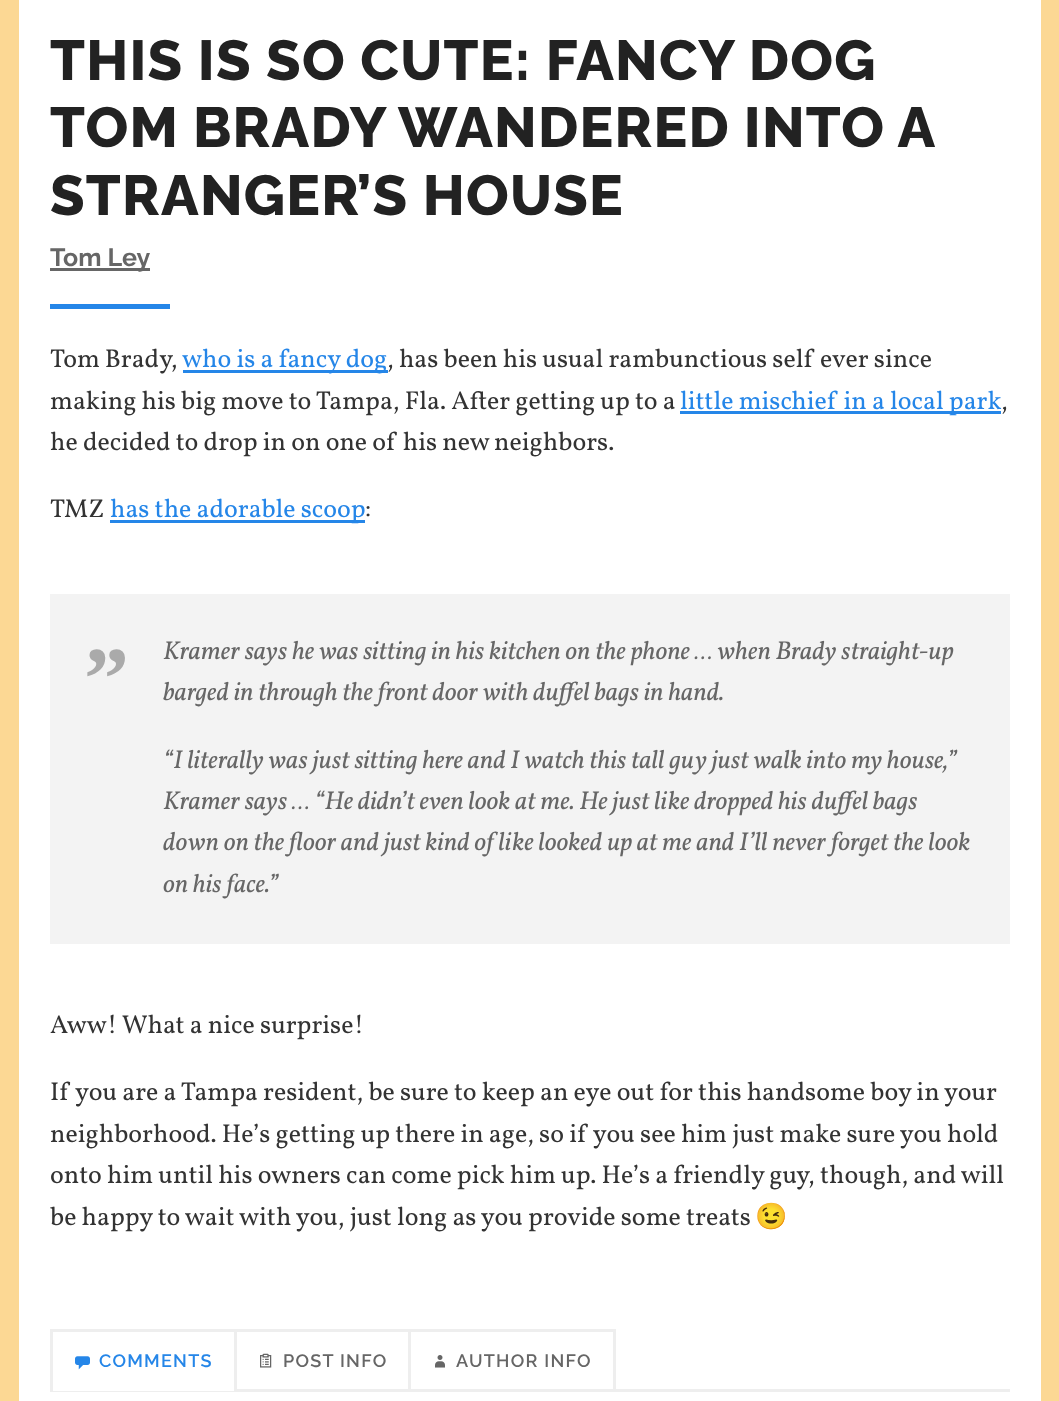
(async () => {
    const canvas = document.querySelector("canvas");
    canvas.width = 1059;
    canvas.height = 1401;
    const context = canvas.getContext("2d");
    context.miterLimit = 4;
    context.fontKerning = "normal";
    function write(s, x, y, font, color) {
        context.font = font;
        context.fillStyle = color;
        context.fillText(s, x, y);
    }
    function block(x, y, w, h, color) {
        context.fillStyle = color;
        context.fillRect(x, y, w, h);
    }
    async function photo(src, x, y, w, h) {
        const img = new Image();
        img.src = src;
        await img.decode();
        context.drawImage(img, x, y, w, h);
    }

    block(0, 0, 1059, 1401, "rgb(252, 216, 148)");
    block(19, 0, 1022, 1401, "rgb(255, 255, 255)");
    context.letterSpacing = "1.25px";
    write("THIS IS SO CUTE: FANCY DOG", 50, 80, "100 56.25px Raleway", "rgb(34, 34, 34)");
    context.wordSpacing = "-0.5px";
    write("TOM BRADY WANDERED INTO A", 50, 147, "100 56.25px Raleway", "rgb(34, 34, 34)");
    context.wordSpacing = "0px";
    write("STRANGER’S HOUSE", 50, 215, "100 56.25px Raleway", "rgb(34, 34, 34)");
    block(50, 268, 100, 3, "rgb(102, 102, 102)");
    context.letterSpacing = "0px";
    write("Tom Ley", 50, 266, "100 25px 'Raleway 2'", "rgb(102, 102, 102)");
    block(50, 304, 120, 5, "rgb(37, 134, 232)");
    context.wordSpacing = "-0.5px";
    write("Tom Brady,", 50, 367, "25.9px Vollkorn", "rgb(51, 51, 51)");
    block(183, 370, 205, 3, "rgb(37, 134, 232)");
    context.wordSpacing = "0px";
    write("who is a fancy dog", 182, 367, "25.9px Vollkorn", "rgb(37, 134, 232)");
    write(", has been his usual rambunctious self ever since", 387, 367, "25.9px Vollkorn", "rgb(51, 51, 51)");
    write("making his big move to Tampa, Fla. After getting up to a", 50, 409, "25.9px Vollkorn", "rgb(51, 51, 51)");
    block(680, 411, 321, 3, "rgb(37, 134, 232)");
    write("little mischief in a local park", 680, 409, "25.9px Vollkorn", "rgb(37, 134, 232)");
    write(",", 1001, 409, "25.9px Vollkorn", "rgb(51, 51, 51)");
    write("he decided to drop in on one of his new neighbors.", 50, 450, "25.9px Vollkorn", "rgb(51, 51, 51)");
    write("TMZ", 50, 517, "25.9px Vollkorn", "rgb(51, 51, 51)");
    block(110, 520, 255, 3, "rgb(37, 134, 232)");
    write("has the adorable scoop", 110, 517, "25.9px Vollkorn", "rgb(37, 134, 232)");
    write(":", 365, 517, "25.9px Vollkorn", "rgb(51, 51, 51)");
    block(50, 594, 960, 350, "rgb(243, 243, 243)");
    write("”", 84, 709, "bold 90px Liberation Serif", "rgb(170, 170, 170)");
    write("Kramer says he was sitting in his kitchen on the phone … when Brady straight-up", 163, 659, "italic 25.9px Vollkorn", "rgb(102, 102, 102)");
    write("barged in through the front door with duffel bags in hand.", 163, 700, "italic 25.9px Vollkorn", "rgb(102, 102, 102)");
    write("“I literally was just sitting here and I watch this tall guy just walk into my house,”", 163, 768, "italic 25.9px Vollkorn", "rgb(102, 102, 102)");
    write("Kramer says … “He didn’t even look at me. He just like dropped his duffel bags", 163, 809, "italic 25.9px Vollkorn", "rgb(102, 102, 102)");
    write("down on the floor and just kind of like looked up at me and I’ll never forget the look", 163, 850, "italic 25.9px Vollkorn", "rgb(102, 102, 102)");
    write("on his face.”", 163, 892, "italic 25.9px Vollkorn", "rgb(102, 102, 102)");
    write("Aww! What a nice surprise!", 50, 1033, "25.9px Vollkorn", "rgb(51, 51, 51)");
    write("If you are a Tampa resident, be sure to keep an eye out for this handsome boy in your", 50, 1100, "25.9px Vollkorn", "rgb(51, 51, 51)");
    write("neighborhood. He’s getting up there in age, so if you see him just make sure you hold", 50, 1142, "25.9px Vollkorn", "rgb(51, 51, 51)");
    write("onto him until his owners can come pick him up. He’s a friendly guy, though, and will", 50, 1183, "25.9px Vollkorn", "rgb(51, 51, 51)");
    write("be happy to wait with you, just long as you provide some treats", 50, 1225, "25.9px Vollkorn", "rgb(51, 51, 51)");
    write("😉", 755, 1225, "25.9px Noto Color Emoji", "rgb(51, 51, 51)");
    block(50, 1389, 960, 3, "rgb(238, 238, 238)");
    block(53, 1389, 181, 2, "rgb(255, 255, 255)");
    block(50, 1329, 186, 3, "rgb(238, 238, 238)");
    block(234, 1329, 3, 62, "rgb(238, 238, 238)");
    block(50, 1329, 3, 62, "rgb(238, 238, 238)");
    await photo("media/1.png", 75, 1356, 15, 14);
    context.letterSpacing = "1.25px";
    write("COMMENTS", 99, 1367, "100 18px 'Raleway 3'", "rgb(37, 134, 232)");
    block(236, 1329, 174, 3, "rgb(238, 238, 238)");
    block(408, 1329, 3, 62, "rgb(238, 238, 238)");
    await photo("media/2.png", 260, 1353, 12, 15);
    write("POST INFO", 283, 1367, "100 18px 'Raleway 3'", "rgb(102, 102, 102)");
    block(410, 1329, 205, 3, "rgb(238, 238, 238)");
    block(613, 1329, 3, 62, "rgb(238, 238, 238)");
    await photo("media/3.png", 435, 1355, 10, 13);
    write("AUTHOR INFO", 456, 1367, "100 18px 'Raleway 3'", "rgb(102, 102, 102)");
})();
